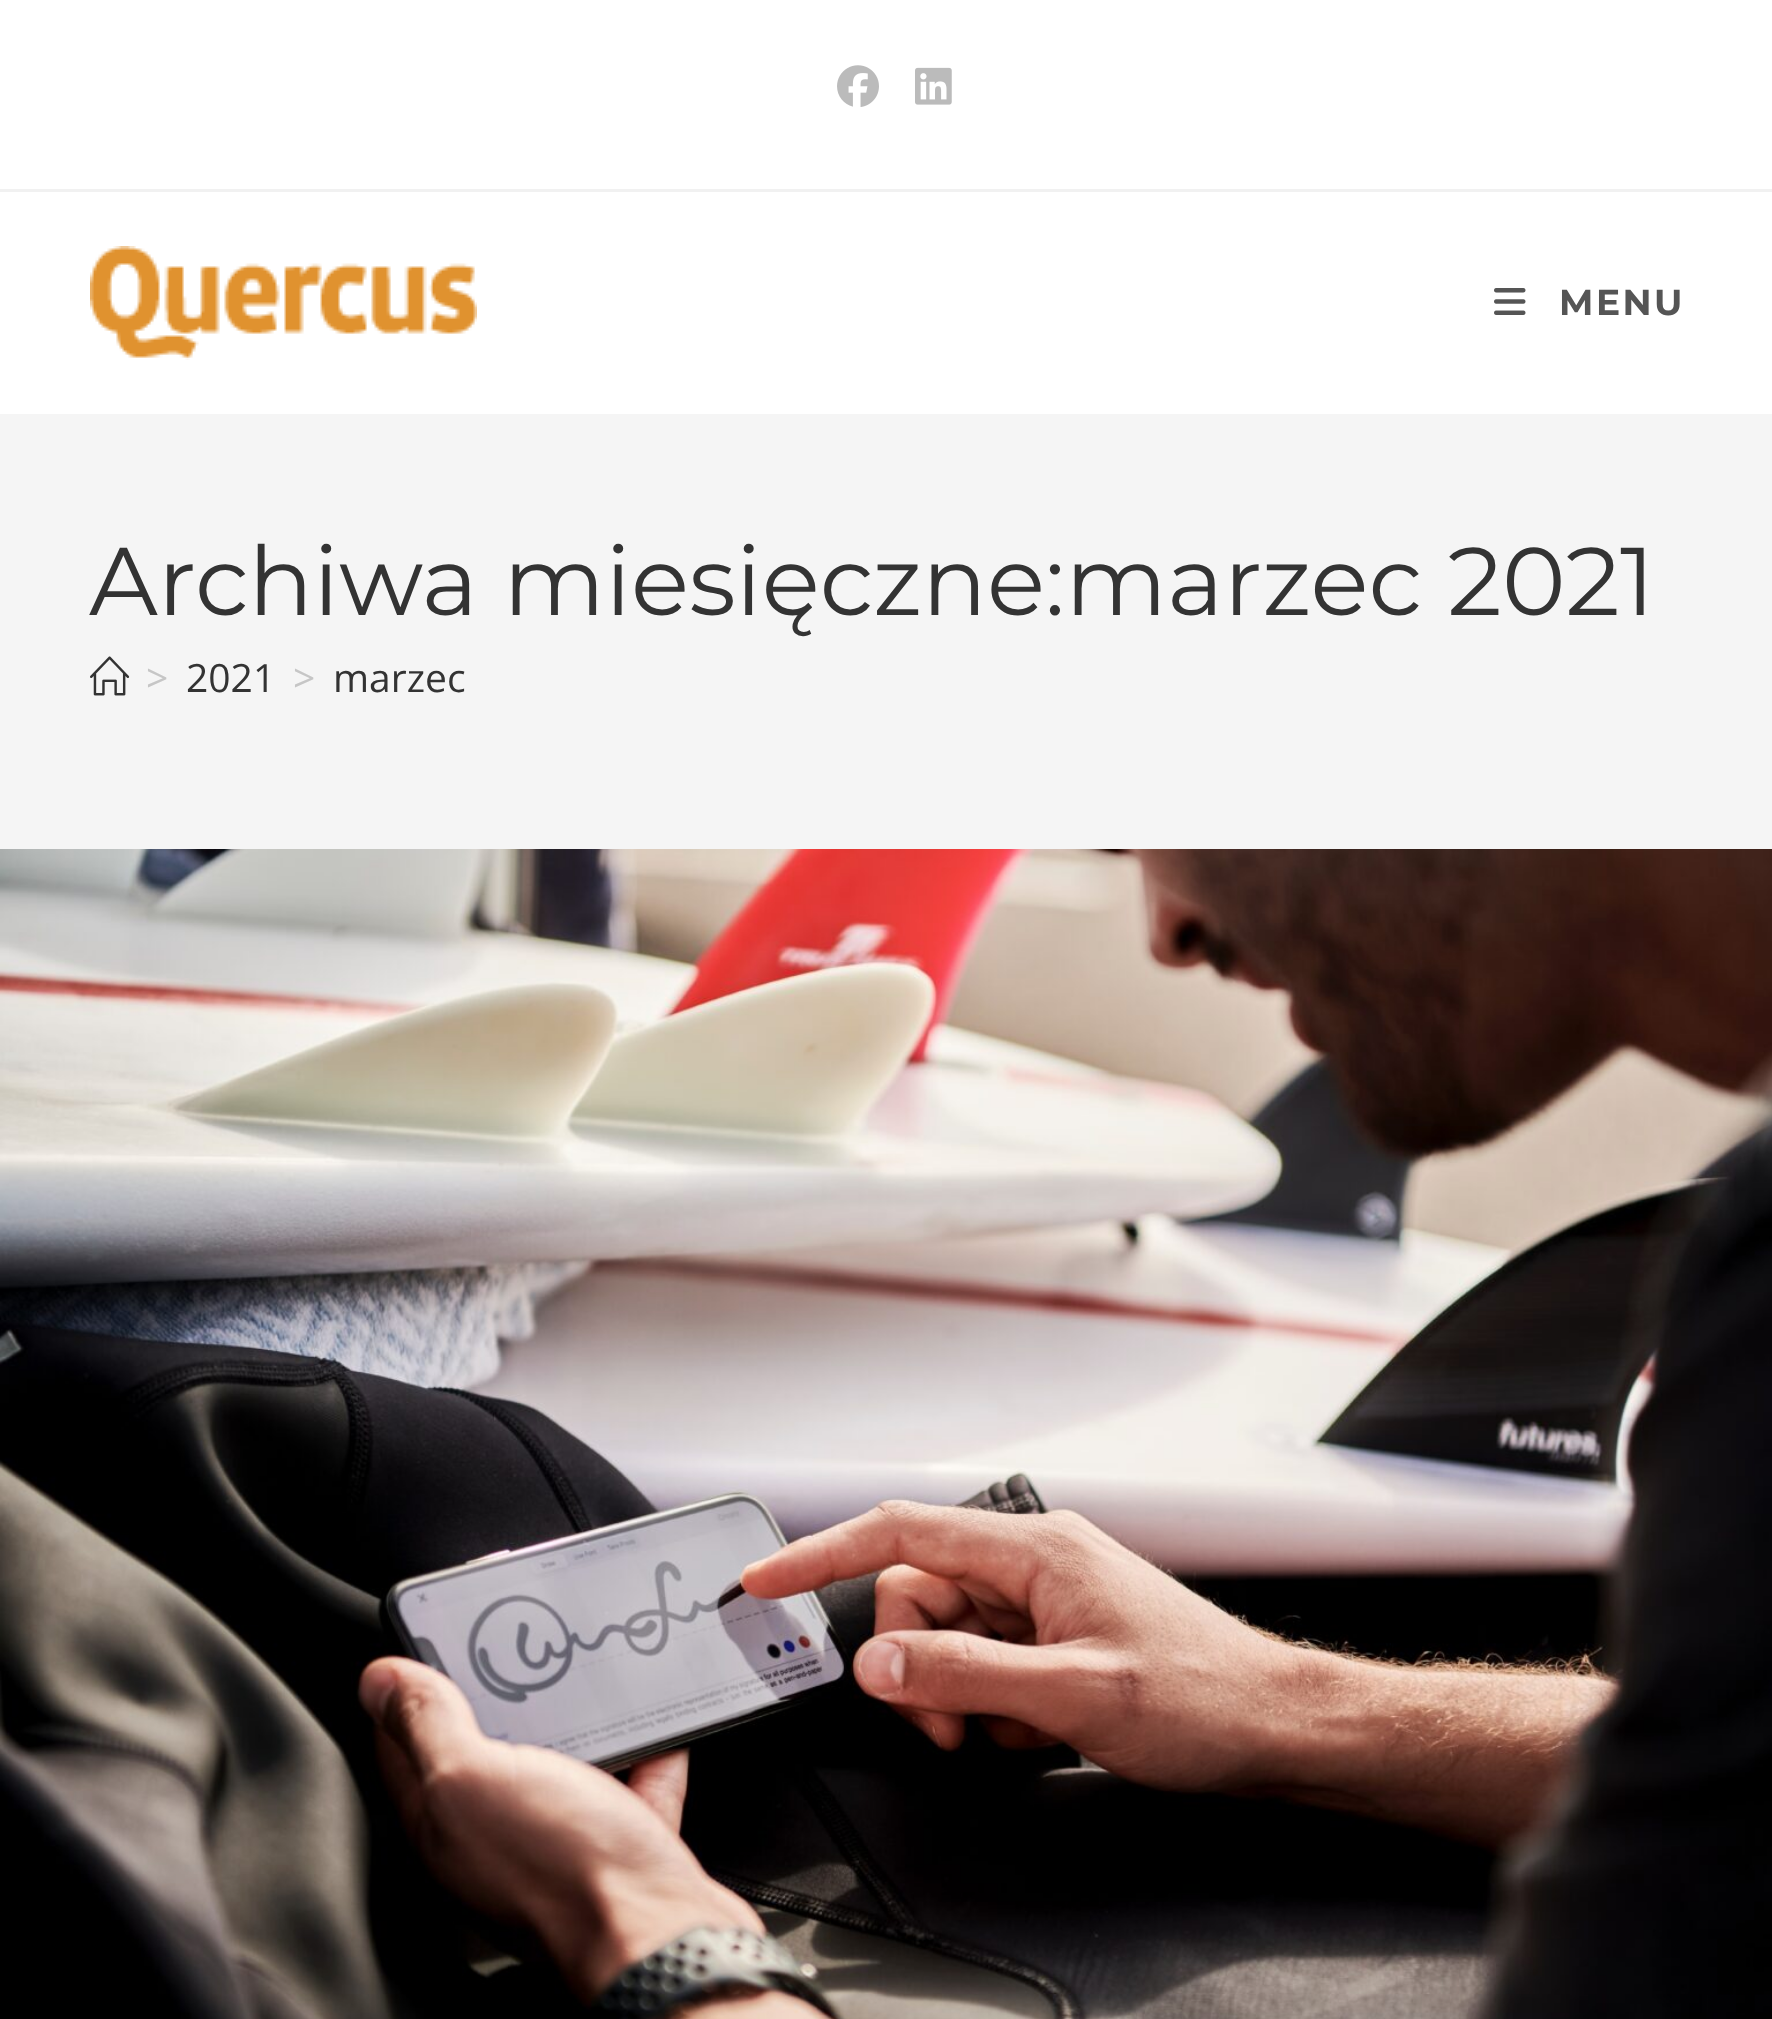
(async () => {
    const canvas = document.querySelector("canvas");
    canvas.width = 1772;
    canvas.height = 2019;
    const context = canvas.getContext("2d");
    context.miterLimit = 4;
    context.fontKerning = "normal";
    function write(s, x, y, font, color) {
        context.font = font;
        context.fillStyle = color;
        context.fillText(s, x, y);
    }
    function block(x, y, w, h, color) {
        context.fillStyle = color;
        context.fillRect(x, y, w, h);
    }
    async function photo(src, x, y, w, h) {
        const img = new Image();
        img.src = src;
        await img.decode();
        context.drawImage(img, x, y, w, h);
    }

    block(0, 0, 1772, 2019, "rgb(255, 255, 255)");
    block(0, 189, 1772, 3, "rgb(241, 241, 241)");
    await photo("media/1.png", 837, 65, 42, 42);
    await photo("media/2.png", 915, 67, 37, 38);
    await photo("media/3.png", 90, 246, 387, 114);
    await photo("media/4.png", 1494, 288, 32, 27);
    context.letterSpacing = "2.5px";
    write("MENU", 1559, 315, "bold 36px Montserrat", "rgb(85, 85, 85)");
    block(0, 414, 1772, 435, "rgb(245, 245, 245)");
    context.letterSpacing = "0px";
    write("Archiwa miesięczne:marzec 2021", 89, 615, "96px Montserrat", "rgb(51, 51, 51)");
    await photo("media/5.png", 90, 656, 40, 40);
    write(">", 146, 692, "39px Open Sans", "rgb(198, 198, 198)");
    write("2021", 186, 692, "39px Open Sans", "rgb(51, 51, 51)");
    write(">", 293, 692, "39px Open Sans", "rgb(198, 198, 198)");
    write("marzec", 333, 692, "39px Open Sans", "rgb(51, 51, 51)");
    await photo("media/6.png", 0, 849, 1772, 1170);
})();
